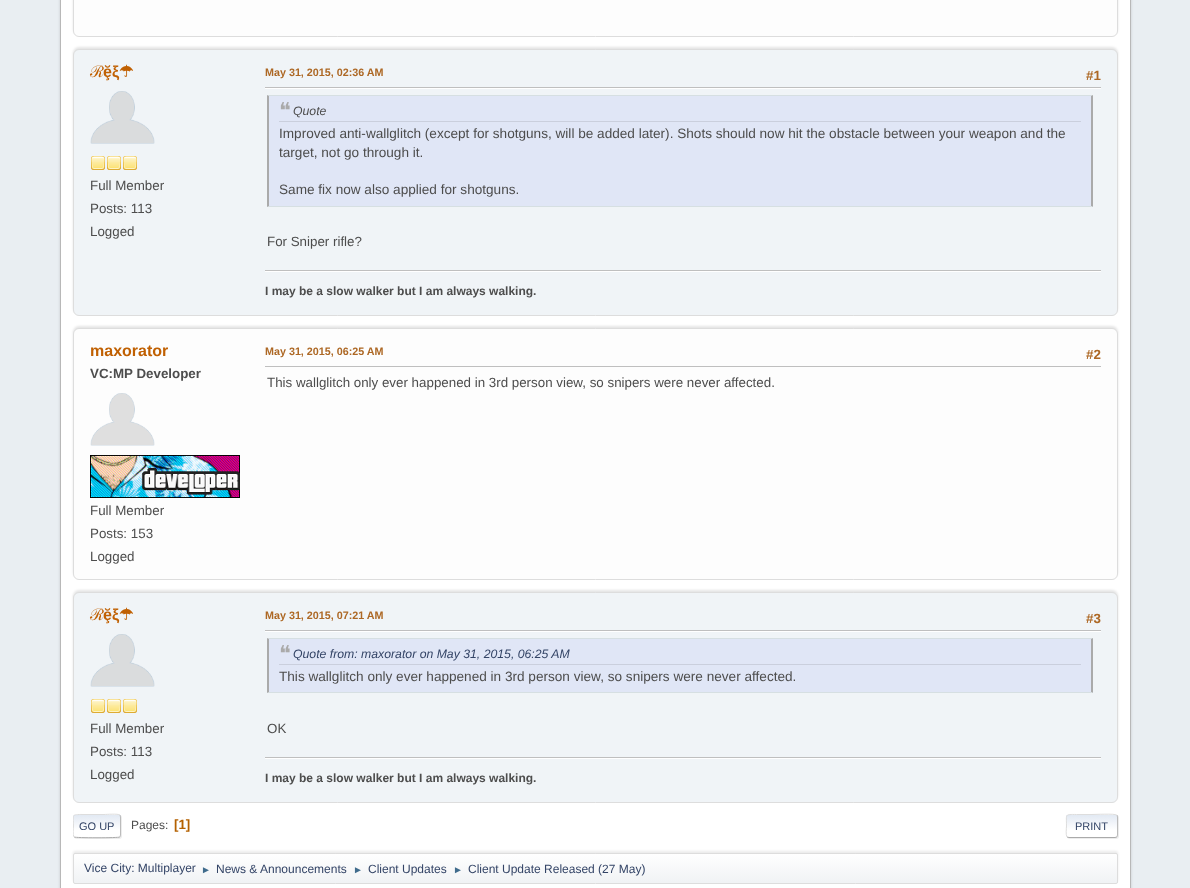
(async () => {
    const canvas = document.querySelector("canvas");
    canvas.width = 1190;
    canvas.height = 888;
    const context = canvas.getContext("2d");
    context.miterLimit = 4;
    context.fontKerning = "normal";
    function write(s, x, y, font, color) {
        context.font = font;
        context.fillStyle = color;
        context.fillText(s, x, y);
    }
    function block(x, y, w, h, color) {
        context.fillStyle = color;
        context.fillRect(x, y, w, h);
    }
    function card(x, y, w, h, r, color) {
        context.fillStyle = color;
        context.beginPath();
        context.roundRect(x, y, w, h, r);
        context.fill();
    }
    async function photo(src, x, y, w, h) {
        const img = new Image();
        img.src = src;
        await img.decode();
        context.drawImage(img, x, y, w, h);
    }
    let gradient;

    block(0, 0, 1190, 888, "rgb(233, 238, 242)");
    context.fillStyle = "rgba(0, 0, 0, 0.14)";
    context.filter = "blur(1.5px)";
    context.beginPath();
    context.roundRect(60, -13, 1071, 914, 8);
    context.fill();
    context.filter = "none";
    context.fillStyle = "rgb(255, 255, 255)";
    context.beginPath();
    context.rect(60.5, -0.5, 1070, 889);
    context.fill();
    context.strokeStyle = "rgb(184, 184, 184)";
    context.stroke();
    context.fillStyle = "rgba(0, 0, 0, 0.1)";
    context.filter = "blur(1px)";
    context.beginPath();
    context.roundRect(73, -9, 1045, 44, 6);
    context.fill();
    context.filter = "none";
    context.fillStyle = "rgb(253, 253, 253)";
    context.beginPath();
    context.roundRect(73.5, -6.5, 1044, 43, 5.5);
    context.fill();
    context.strokeStyle = "rgb(221, 221, 221)";
    context.stroke();
    context.fillStyle = "rgba(0, 0, 0, 0.1)";
    context.filter = "blur(1px)";
    context.beginPath();
    context.roundRect(73, 47, 1045, 267, 6);
    context.fill();
    context.filter = "none";
    context.fillStyle = "rgb(240, 244, 247)";
    context.beginPath();
    context.roundRect(73.5, 49.5, 1044, 266, 5.5);
    context.fill();
    context.stroke();
    write("ℛ", 90, 77, "bold 16px Noto Sans", "rgb(192, 96, 2)");
    write("ḝξ", 103, 77, "bold 16px Liberation Sans", "rgb(192, 96, 2)");
    write("☂", 119, 77, "bold 16px DejaVu Sans", "rgb(192, 96, 2)");
    await photo("media/1.png", 90, 91, 65, 53);
    await photo("media/2.png", 91, 156, 14, 14);
    await photo("media/2.png", 107, 156, 14, 14);
    await photo("media/2.png", 123, 156, 14, 14);
    write("Full Member", 90, 190, "13.35px Liberation Sans", "rgb(77, 77, 77)");
    write("Posts: 113", 90, 213, "13.35px Liberation Sans", "rgb(77, 77, 77)");
    write("Logged", 90, 236, "13.35px Liberation Sans", "rgb(77, 77, 77)");
    write("May 31, 2015, 02:36 AM", 265, 76, "bold 10.75px Liberation Sans", "rgb(173, 104, 37)");
    write("#1", 1086, 80, "bold 13.35px Liberation Sans", "rgb(173, 104, 37)");
    block(265, 88, 836, 1, "rgb(255, 255, 255)");
    block(265, 87, 836, 1, "rgb(191, 191, 191)");
    block(269, 96, 822, 110, "rgb(224, 230, 246)");
    context.fillStyle = "rgb(214, 223, 226)";
    context.beginPath();
    context.moveTo(267, 95);
    context.lineTo(1093, 95);
    context.lineTo(1091, 96);
    context.lineTo(269, 96);
    context.closePath();
    context.fill();
    context.fillStyle = "rgb(170, 170, 170)";
    context.beginPath();
    context.moveTo(1093, 95);
    context.lineTo(1093, 207);
    context.lineTo(1091, 206);
    context.lineTo(1091, 96);
    context.closePath();
    context.fill();
    context.fillStyle = "rgb(214, 223, 226)";
    context.beginPath();
    context.moveTo(1093, 207);
    context.lineTo(267, 207);
    context.lineTo(269, 206);
    context.lineTo(1091, 206);
    context.closePath();
    context.fill();
    context.fillStyle = "rgb(170, 170, 170)";
    context.beginPath();
    context.moveTo(267, 207);
    context.lineTo(267, 95);
    context.lineTo(269, 96);
    context.lineTo(269, 206);
    context.closePath();
    context.fill();
    block(279, 121, 802, 1, "rgb(202, 207, 221)");
    write("❝", 279, 118, "22px DejaVu Sans", "rgb(170, 170, 170)");
    write("Quote", 293, 115, "italic 12.25px Liberation Sans", "rgb(77, 77, 77)");
    write("Improved anti-wallglitch (except for shotguns, will be added later). Shots should now hit the obstacle between your weapon and the", 279, 138, "13.6px Liberation Sans", "rgb(77, 77, 77)");
    write("target, not go through it.", 279, 157, "13.6px Liberation Sans", "rgb(77, 77, 77)");
    write("Same fix now also applied for shotguns.", 279, 194, "13.6px Liberation Sans", "rgb(77, 77, 77)");
    write("For Sniper rifle?", 267, 246, "13.35px Liberation Sans", "rgb(77, 77, 77)");
    block(265, 271, 836, 1, "rgb(255, 255, 255)");
    block(265, 270, 836, 1, "rgb(191, 191, 191)");
    write("I may be a slow walker but I am always walking.", 265, 295, "bold 12px Liberation Sans", "rgb(77, 77, 77)");
    context.fillStyle = "rgba(0, 0, 0, 0.1)";
    context.filter = "blur(1px)";
    context.beginPath();
    context.roundRect(73, 326, 1045, 252, 6);
    context.fill();
    context.filter = "none";
    context.fillStyle = "rgb(253, 253, 253)";
    context.beginPath();
    context.roundRect(73.5, 328.5, 1044, 251, 5.5);
    context.fill();
    context.stroke();
    write("maxorator", 90, 356, "bold 16px Liberation Sans", "rgb(192, 96, 2)");
    write("VC:MP Developer", 90, 378, "bold 13.35px Liberation Sans", "rgb(77, 77, 77)");
    await photo("media/3.png", 90, 393, 65, 53);
    await photo("media/4.png", 90, 455, 150, 43);
    write("Full Member", 90, 515, "13.35px Liberation Sans", "rgb(77, 77, 77)");
    write("Posts: 153", 90, 538, "13.35px Liberation Sans", "rgb(77, 77, 77)");
    write("Logged", 90, 561, "13.35px Liberation Sans", "rgb(77, 77, 77)");
    write("May 31, 2015, 06:25 AM", 265, 355, "bold 10.75px Liberation Sans", "rgb(173, 104, 37)");
    write("#2", 1086, 359, "bold 13.35px Liberation Sans", "rgb(173, 104, 37)");
    block(265, 366, 836, 1, "rgb(191, 191, 191)");
    write("This wallglitch only ever happened in 3rd person view, so snipers were never affected.", 267, 387, "13.35px Liberation Sans", "rgb(77, 77, 77)");
    context.fillStyle = "rgba(0, 0, 0, 0.1)";
    context.filter = "blur(1px)";
    context.beginPath();
    context.roundRect(73, 590, 1045, 211, 6);
    context.fill();
    context.filter = "none";
    context.fillStyle = "rgb(240, 244, 247)";
    context.beginPath();
    context.roundRect(73.5, 592.5, 1044, 210, 5.5);
    context.fill();
    context.stroke();
    write("ℛ", 90, 620, "bold 16px Noto Sans", "rgb(192, 96, 2)");
    write("ḝξ", 103, 620, "bold 16px Liberation Sans", "rgb(192, 96, 2)");
    write("☂", 119, 620, "bold 16px DejaVu Sans", "rgb(192, 96, 2)");
    await photo("media/5.png", 90, 634, 65, 53);
    await photo("media/2.png", 91, 699, 14, 14);
    await photo("media/2.png", 107, 699, 14, 14);
    await photo("media/2.png", 123, 699, 14, 14);
    write("Full Member", 90, 733, "13.35px Liberation Sans", "rgb(77, 77, 77)");
    write("Posts: 113", 90, 756, "13.35px Liberation Sans", "rgb(77, 77, 77)");
    write("Logged", 90, 779, "13.35px Liberation Sans", "rgb(77, 77, 77)");
    write("May 31, 2015, 07:21 AM", 265, 619, "bold 10.75px Liberation Sans", "rgb(173, 104, 37)");
    write("#3", 1086, 623, "bold 13.35px Liberation Sans", "rgb(173, 104, 37)");
    block(265, 631, 836, 1, "rgb(255, 255, 255)");
    block(265, 630, 836, 1, "rgb(191, 191, 191)");
    block(269, 639, 822, 53, "rgb(224, 230, 246)");
    context.fillStyle = "rgb(214, 223, 226)";
    context.beginPath();
    context.moveTo(267, 638);
    context.lineTo(1093, 638);
    context.lineTo(1091, 639);
    context.lineTo(269, 639);
    context.closePath();
    context.fill();
    context.fillStyle = "rgb(170, 170, 170)";
    context.beginPath();
    context.moveTo(1093, 638);
    context.lineTo(1093, 693);
    context.lineTo(1091, 692);
    context.lineTo(1091, 639);
    context.closePath();
    context.fill();
    context.fillStyle = "rgb(214, 223, 226)";
    context.beginPath();
    context.moveTo(1093, 693);
    context.lineTo(267, 693);
    context.lineTo(269, 692);
    context.lineTo(1091, 692);
    context.closePath();
    context.fill();
    context.fillStyle = "rgb(170, 170, 170)";
    context.beginPath();
    context.moveTo(267, 693);
    context.lineTo(267, 638);
    context.lineTo(269, 639);
    context.lineTo(269, 692);
    context.closePath();
    context.fill();
    block(279, 664, 802, 1, "rgb(202, 207, 221)");
    write("❝", 279, 661, "22px DejaVu Sans", "rgb(170, 170, 170)");
    write("Quote from: maxorator on May 31, 2015, 06:25 AM", 293, 658, "italic 12.25px Liberation Sans", "rgb(51, 68, 102)");
    write("This wallglitch only ever happened in 3rd person view, so snipers were never affected.", 279, 681, "13.6px Liberation Sans", "rgb(77, 77, 77)");
    write("OK", 267, 733, "13.35px Liberation Sans", "rgb(77, 77, 77)");
    block(265, 758, 836, 1, "rgb(255, 255, 255)");
    block(265, 757, 836, 1, "rgb(191, 191, 191)");
    write("I may be a slow walker but I am always walking.", 265, 782, "bold 12px Liberation Sans", "rgb(77, 77, 77)");
    context.fillStyle = "rgba(221, 221, 221, 0.57)";
    context.filter = "blur(0.5px)";
    context.beginPath();
    context.roundRect(74, 815, 48, 24, 3);
    context.fill();
    context.filter = "none";
    card(73, 814, 48, 24, 3, "rgb(255, 255, 255)");
    context.save();
    context.beginPath();
    context.roundRect(73, 814, 48, 24, 3);
    context.clip();
    gradient = context.createLinearGradient(97, 815, 97, 837);
    gradient.addColorStop(0, "rgb(226, 233, 243)");
    gradient.addColorStop(0.7, "rgb(255, 255, 255)");
    context.fillStyle = gradient;
    context.fillRect(73, 815, 48, 22);
    context.restore();
    context.beginPath();
    context.moveTo(120, 815);
    context.bezierCurveTo(120, 815.5, 120.5, 816.5, 120.5, 817);
    context.lineTo(120.5, 835);
    context.bezierCurveTo(120.5, 835.5, 120, 836.5, 120, 837);
    context.strokeStyle = "rgb(187, 187, 187)";
    context.stroke();
    context.beginPath();
    context.moveTo(120, 837);
    context.bezierCurveTo(118.5, 838, 75.5, 838, 74, 837);
    context.strokeStyle = "rgb(170, 170, 170)";
    context.stroke();
    context.save();
    context.beginPath();
    context.rect(73, 807, 1045, 38);
    context.clip();
    context.beginPath();
    context.moveTo(74, 837);
    context.bezierCurveTo(72.5, 835, 73.5, 828, 73.5, 826);
    context.bezierCurveTo(73.5, 814, 71, 814.5, 83, 814.5);
    context.lineTo(104, 814.5);
    context.bezierCurveTo(106.5, 814.5, 118, 813.5, 120, 815);
    context.strokeStyle = "rgb(221, 221, 221)";
    context.stroke();
    context.restore();
    write("GO UP", 79, 830, "11px Liberation Sans", "rgb(51, 68, 102)");
    write("Pages:", 131, 829, "12px Liberation Sans", "rgb(77, 77, 77)");
    write("[1]", 174, 829, "bold 13.35px Liberation Sans", "rgb(180, 97, 0)");
    context.save();
    context.beginPath();
    context.moveTo(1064, 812);
    context.lineTo(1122, 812);
    context.lineTo(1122, 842);
    context.lineTo(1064, 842);
    context.closePath();
    context.moveTo(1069, 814);
    context.lineTo(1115, 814);
    context.bezierCurveTo(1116.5, 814, 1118, 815.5, 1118, 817);
    context.lineTo(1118, 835);
    context.bezierCurveTo(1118, 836.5, 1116.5, 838, 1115, 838);
    context.lineTo(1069, 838);
    context.bezierCurveTo(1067.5, 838, 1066, 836.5, 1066, 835);
    context.lineTo(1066, 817);
    context.bezierCurveTo(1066, 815.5, 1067.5, 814, 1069, 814);
    context.closePath();
    context.clip("evenodd");
    context.fillStyle = "rgba(221, 221, 221, 0.57)";
    context.filter = "blur(0.5px)";
    context.beginPath();
    context.roundRect(1067, 815, 52, 24, 3);
    context.fill();
    context.filter = "none";
    context.restore();
    card(1066, 814, 52, 24, 3, "rgb(255, 255, 255)");
    context.save();
    context.beginPath();
    context.roundRect(1066, 814, 52, 24, 3);
    context.clip();
    gradient = context.createLinearGradient(1092, 815, 1092, 837);
    gradient.addColorStop(0, "rgb(226, 233, 243)");
    gradient.addColorStop(0.7, "rgb(255, 255, 255)");
    context.fillStyle = gradient;
    context.fillRect(1066, 815, 52, 22);
    context.restore();
    context.beginPath();
    context.moveTo(1117, 815);
    context.bezierCurveTo(1117, 815.5, 1117.5, 816.5, 1117.5, 817);
    context.lineTo(1117.5, 835);
    context.bezierCurveTo(1117.5, 835.5, 1117, 836.5, 1117, 837);
    context.strokeStyle = "rgb(187, 187, 187)";
    context.stroke();
    context.beginPath();
    context.moveTo(1117, 837);
    context.lineTo(1115, 837.5);
    context.lineTo(1069, 837.5);
    context.lineTo(1067, 837);
    context.strokeStyle = "rgb(170, 170, 170)";
    context.stroke();
    context.beginPath();
    context.moveTo(1067, 837);
    context.bezierCurveTo(1065.5, 835, 1066.5, 828, 1066.5, 826);
    context.bezierCurveTo(1066.5, 813.5, 1064.5, 814.5, 1076.5, 814.5);
    context.lineTo(1092, 814.5);
    context.bezierCurveTo(1095.5, 814.5, 1114.5, 813.5, 1116.5, 815);
    context.lineTo(1117, 815);
    context.strokeStyle = "rgb(221, 221, 221)";
    context.stroke();
    write("PRINT", 1075, 830, "11px Liberation Sans", "rgb(51, 68, 102)");
    context.fillStyle = "rgba(0, 0, 0, 0.08)";
    context.filter = "blur(1px)";
    context.beginPath();
    context.roundRect(73, 851, 1045, 31, 2);
    context.fill();
    context.filter = "none";
    context.save();
    context.beginPath();
    context.roundRect(73, 853, 1045, 31, 2);
    context.clip();
    gradient = context.createLinearGradient(596, 854, 596, 883);
    gradient.addColorStop(0, "rgb(255, 255, 255)");
    gradient.addColorStop(0.95, "rgb(241, 243, 245)");
    context.fillStyle = gradient;
    context.fillRect(73, 854, 1045, 29);
    context.restore();
    context.beginPath();
    context.roundRect(73.5, 853.5, 1044, 30, 1.5);
    context.stroke();
    write("Vice City: Multiplayer", 84, 872, "12px Liberation Sans", "rgb(51, 68, 102)");
    write("►", 201, 873, "10px Liberation Sans", "rgb(63, 107, 140)");
    write("News & Announcements", 216, 873, "12px Liberation Sans", "rgb(51, 68, 102)");
    write("►", 353, 873, "10px Liberation Sans", "rgb(63, 107, 140)");
    write("Client Updates", 368, 873, "12px Liberation Sans", "rgb(51, 68, 102)");
    write("►", 453, 873, "10px Liberation Sans", "rgb(63, 107, 140)");
    write("Client Update Released (27 May)", 468, 873, "12px Liberation Sans", "rgb(51, 68, 102)");
})();
